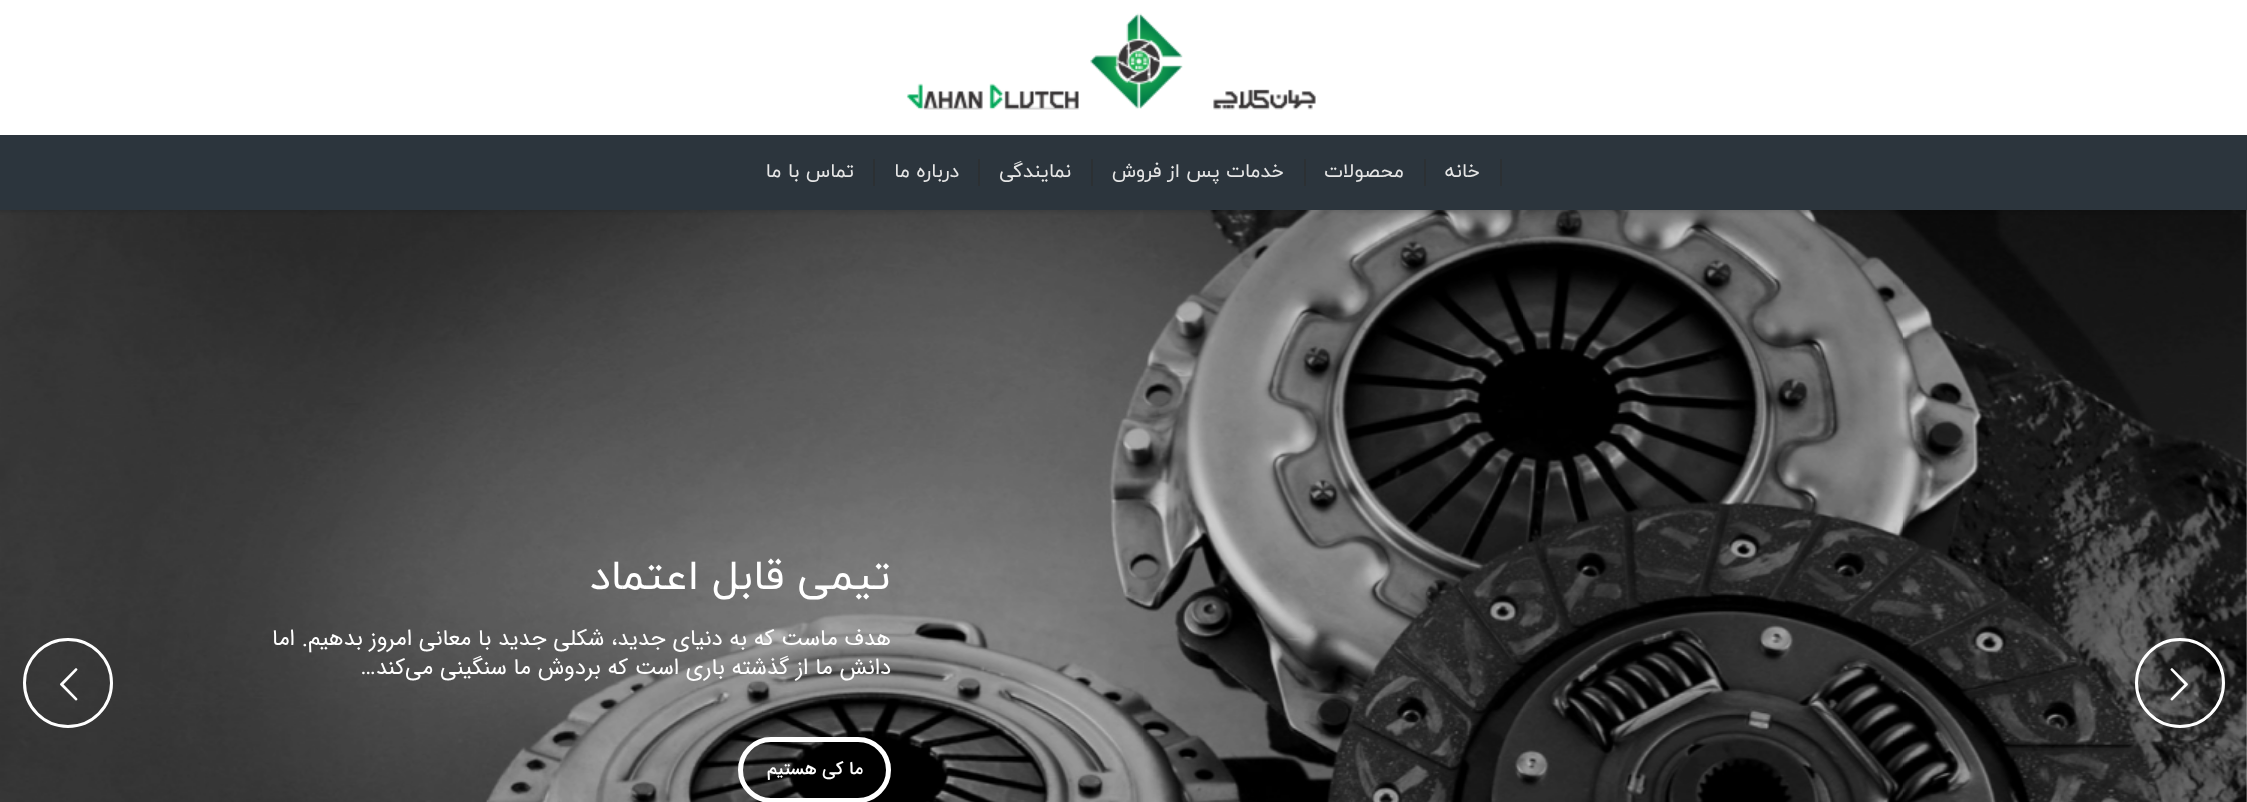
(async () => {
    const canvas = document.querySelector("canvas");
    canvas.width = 2247;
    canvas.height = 802;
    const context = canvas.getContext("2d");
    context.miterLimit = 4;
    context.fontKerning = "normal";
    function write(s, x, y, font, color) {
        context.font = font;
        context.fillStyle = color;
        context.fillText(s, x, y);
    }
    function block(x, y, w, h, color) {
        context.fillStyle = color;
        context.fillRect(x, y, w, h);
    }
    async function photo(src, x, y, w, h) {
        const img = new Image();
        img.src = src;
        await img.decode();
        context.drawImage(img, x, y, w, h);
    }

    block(0, 0, 2247, 802, "rgb(204, 204, 204)");
    await photo("media/2.png", 0, 210, 2247, 592);
    context.fillStyle = "rgba(0, 0, 0, 0.1)";
    context.filter = "blur(1.5px)";
    context.beginPath();
    context.rect(-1, -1, 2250, 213);
    context.fill();
    context.filter = "none";
    block(0, 0, 2247, 135, "rgb(255, 255, 255)");
    await photo("media/1.png", 906, 13, 410, 97);
    block(0, 135, 2247, 75, "rgb(44, 53, 61)");
    context.direction = "rtl";
    write("خانه", 1480, 177, "19.5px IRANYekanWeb", "rgb(230, 230, 230)");
    block(1500, 159, 2, 27, "rgb(44, 48, 51)");
    write("محصولات", 1404, 177, "19.5px IRANYekanWeb", "rgb(230, 230, 230)");
    block(1424, 159, 2, 27, "rgb(44, 48, 51)");
    write("خدمات پس از فروش", 1284, 177, "19.5px IRANYekanWeb", "rgb(230, 230, 230)");
    block(1304, 159, 2, 27, "rgb(44, 48, 51)");
    write("نمايندگی", 1071, 177, "19.5px IRANYekanWeb", "rgb(230, 230, 230)");
    block(1091, 159, 2, 27, "rgb(44, 48, 51)");
    write("درباره ما", 959, 177, "19.5px IRANYekanWeb", "rgb(230, 230, 230)");
    block(978, 159, 2, 27, "rgb(44, 48, 51)");
    write("تماس با ما", 854, 177, "19.5px IRANYekanWeb", "rgb(230, 230, 230)");
    block(873, 159, 2, 27, "rgb(44, 48, 51)");
    write("تیمی قابل اعتماد", 891, 589, "42px IRANYekanWeb", "rgb(255, 255, 255)");
    write("هدف ماست که به دنیای جدید، شکلی جدید با معانی امروز بدهیم. اما", 891, 645, "22.5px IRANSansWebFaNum", "rgb(255, 255, 255)");
    write("دانش ما از گذشته باری است که بردوش ما سنگینی می‌کند…", 891, 674, "22.5px IRANSansWebFaNum", "rgb(255, 255, 255)");
    context.fillStyle = "rgba(0, 0, 0, 0.2)";
    context.beginPath();
    context.roundRect(740.5, 739.5, 148, 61, 30.5);
    context.fill();
    context.strokeStyle = "rgb(255, 255, 255)";
    context.lineWidth = 5;
    context.stroke();
    write("ما کی هستیم", 863, 774, "500 18px IRANSansWebFaNum", "rgb(255, 255, 255)");
    context.beginPath();
    context.arc(2180, 683, 43.5, 0, Math.PI * 2);
    context.lineWidth = 3;
    context.stroke();
    await photo("media/3.png", 2170, 668, 18, 33);
    context.beginPath();
    context.arc(68, 683, 43.5, 0, Math.PI * 2);
    context.stroke();
    await photo("media/4.png", 60, 668, 18, 33);
})();
